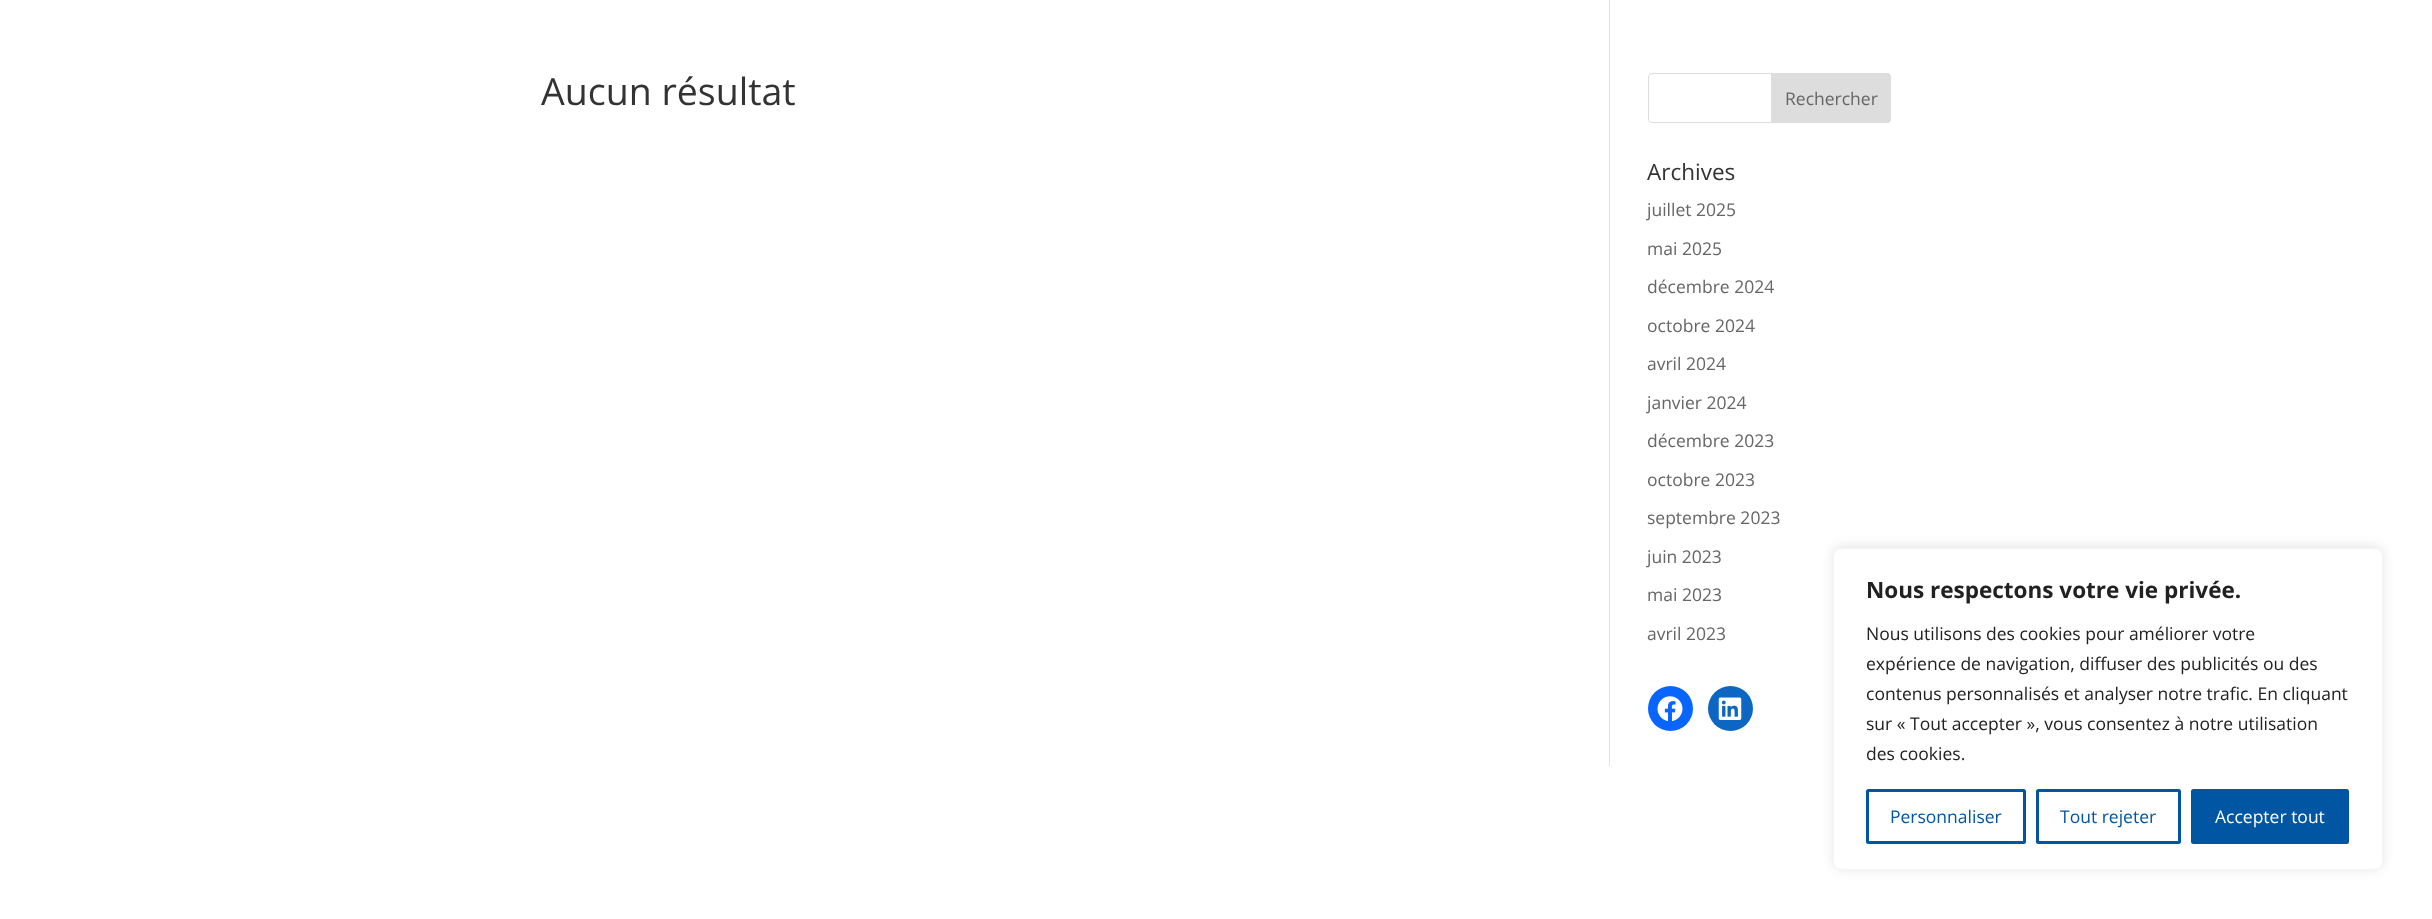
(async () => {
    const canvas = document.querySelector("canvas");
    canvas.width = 2432;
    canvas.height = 919;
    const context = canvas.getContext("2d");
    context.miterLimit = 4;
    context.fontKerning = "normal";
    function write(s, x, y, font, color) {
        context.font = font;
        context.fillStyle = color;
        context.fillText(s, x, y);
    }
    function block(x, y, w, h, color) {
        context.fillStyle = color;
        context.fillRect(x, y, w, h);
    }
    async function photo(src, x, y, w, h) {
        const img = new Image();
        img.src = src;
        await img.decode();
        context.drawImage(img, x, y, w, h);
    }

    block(0, 0, 2432, 919, "rgb(255, 255, 255)");
    block(1609, 0, 1, 766, "rgb(226, 226, 226)");
    write("Aucun résultat", 541, 105, "37.5px Open Sans", "rgb(51, 51, 51)");
    context.beginPath();
    context.roundRect(1648.5, 73.5, 242, 49, 3.5);
    context.strokeStyle = "rgb(221, 221, 221)";
    context.stroke();
    context.fillStyle = "rgb(221, 221, 221)";
    context.beginPath();
    context.roundRect(1771.5, 73.5, 119, 49, [0, 3.5, 3.5, 0]);
    context.fill();
    context.stroke();
    write("Rechercher", 1785, 105, "17.5px Open Sans", "rgb(102, 102, 102)");
    write("Archives", 1647, 180, "22.5px Open Sans", "rgb(51, 51, 51)");
    write("juillet 2025", 1647, 216, "17.5px Open Sans", "rgb(102, 102, 102)");
    write("mai 2025", 1647, 255, "17.5px Open Sans", "rgb(102, 102, 102)");
    write("décembre 2024", 1647, 293, "17.5px Open Sans", "rgb(102, 102, 102)");
    write("octobre 2024", 1647, 332, "17.5px Open Sans", "rgb(102, 102, 102)");
    write("avril 2024", 1647, 370, "17.5px Open Sans", "rgb(102, 102, 102)");
    write("janvier 2024", 1647, 409, "17.5px Open Sans", "rgb(102, 102, 102)");
    write("décembre 2023", 1647, 447, "17.5px Open Sans", "rgb(102, 102, 102)");
    write("octobre 2023", 1647, 486, "17.5px Open Sans", "rgb(102, 102, 102)");
    write("septembre 2023", 1647, 524, "17.5px Open Sans", "rgb(102, 102, 102)");
    write("juin 2023", 1647, 563, "17.5px Open Sans", "rgb(102, 102, 102)");
    write("mai 2023", 1647, 601, "17.5px Open Sans", "rgb(102, 102, 102)");
    write("avril 2023", 1647, 640, "17.5px Open Sans", "rgb(102, 102, 102)");
    context.fillStyle = "rgb(8, 102, 255)";
    context.beginPath();
    context.arc(1670.5, 708.5, 22.5, 0, Math.PI * 2);
    context.fill();
    await photo("media/1.png", 1657, 696, 26, 26);
    context.fillStyle = "rgb(13, 102, 194)";
    context.beginPath();
    context.arc(1730.5, 708.5, 22.5, 0, Math.PI * 2);
    context.fill();
    await photo("media/2.png", 1718, 697, 24, 23);
    context.fillStyle = "rgba(172, 171, 171, 0.3)";
    context.filter = "blur(6px)";
    context.beginPath();
    context.roundRect(1833, 546, 550, 323, 8);
    context.fill();
    context.filter = "none";
    context.fillStyle = "rgb(255, 255, 255)";
    context.beginPath();
    context.roundRect(1833.5, 548.5, 549, 321, 7.5);
    context.fill();
    context.strokeStyle = "rgb(244, 244, 244)";
    context.stroke();
    write("Nous respectons votre vie privée.", 1866, 598, "bold 22.5px Open Sans", "rgb(33, 33, 33)");
    write("Nous utilisons des cookies pour améliorer votre", 1866, 640, "17.5px Open Sans", "rgb(33, 33, 33)");
    write("expérience de navigation, diffuser des publicités ou des", 1866, 670, "17.5px Open Sans", "rgb(33, 33, 33)");
    write("contenus personnalisés et analyser notre trafic. En cliquant", 1866, 700, "17.5px Open Sans", "rgb(33, 33, 33)");
    write("sur « Tout accepter », vous consentez à notre utilisation", 1866, 730, "17.5px Open Sans", "rgb(33, 33, 33)");
    write("des cookies.", 1866, 760, "17.5px Open Sans", "rgb(33, 33, 33)");
    context.beginPath();
    context.roundRect(1867.5, 790.5, 157, 52, 1);
    context.strokeStyle = "rgb(0, 86, 163)";
    context.lineWidth = 3;
    context.stroke();
    write("Personnaliser", 1890, 823, "17.5px Open Sans", "rgb(0, 86, 163)");
    context.beginPath();
    context.roundRect(2037.5, 790.5, 142, 52, 1);
    context.stroke();
    write("Tout rejeter", 2060, 823, "17.5px Open Sans", "rgb(0, 86, 163)");
    context.beginPath();
    context.roundRect(2192.5, 790.5, 155, 52, 1);
    context.fill();
    context.stroke();
    write("Accepter tout", 2215, 823, "17.5px Open Sans", "rgb(255, 255, 255)");
})();
